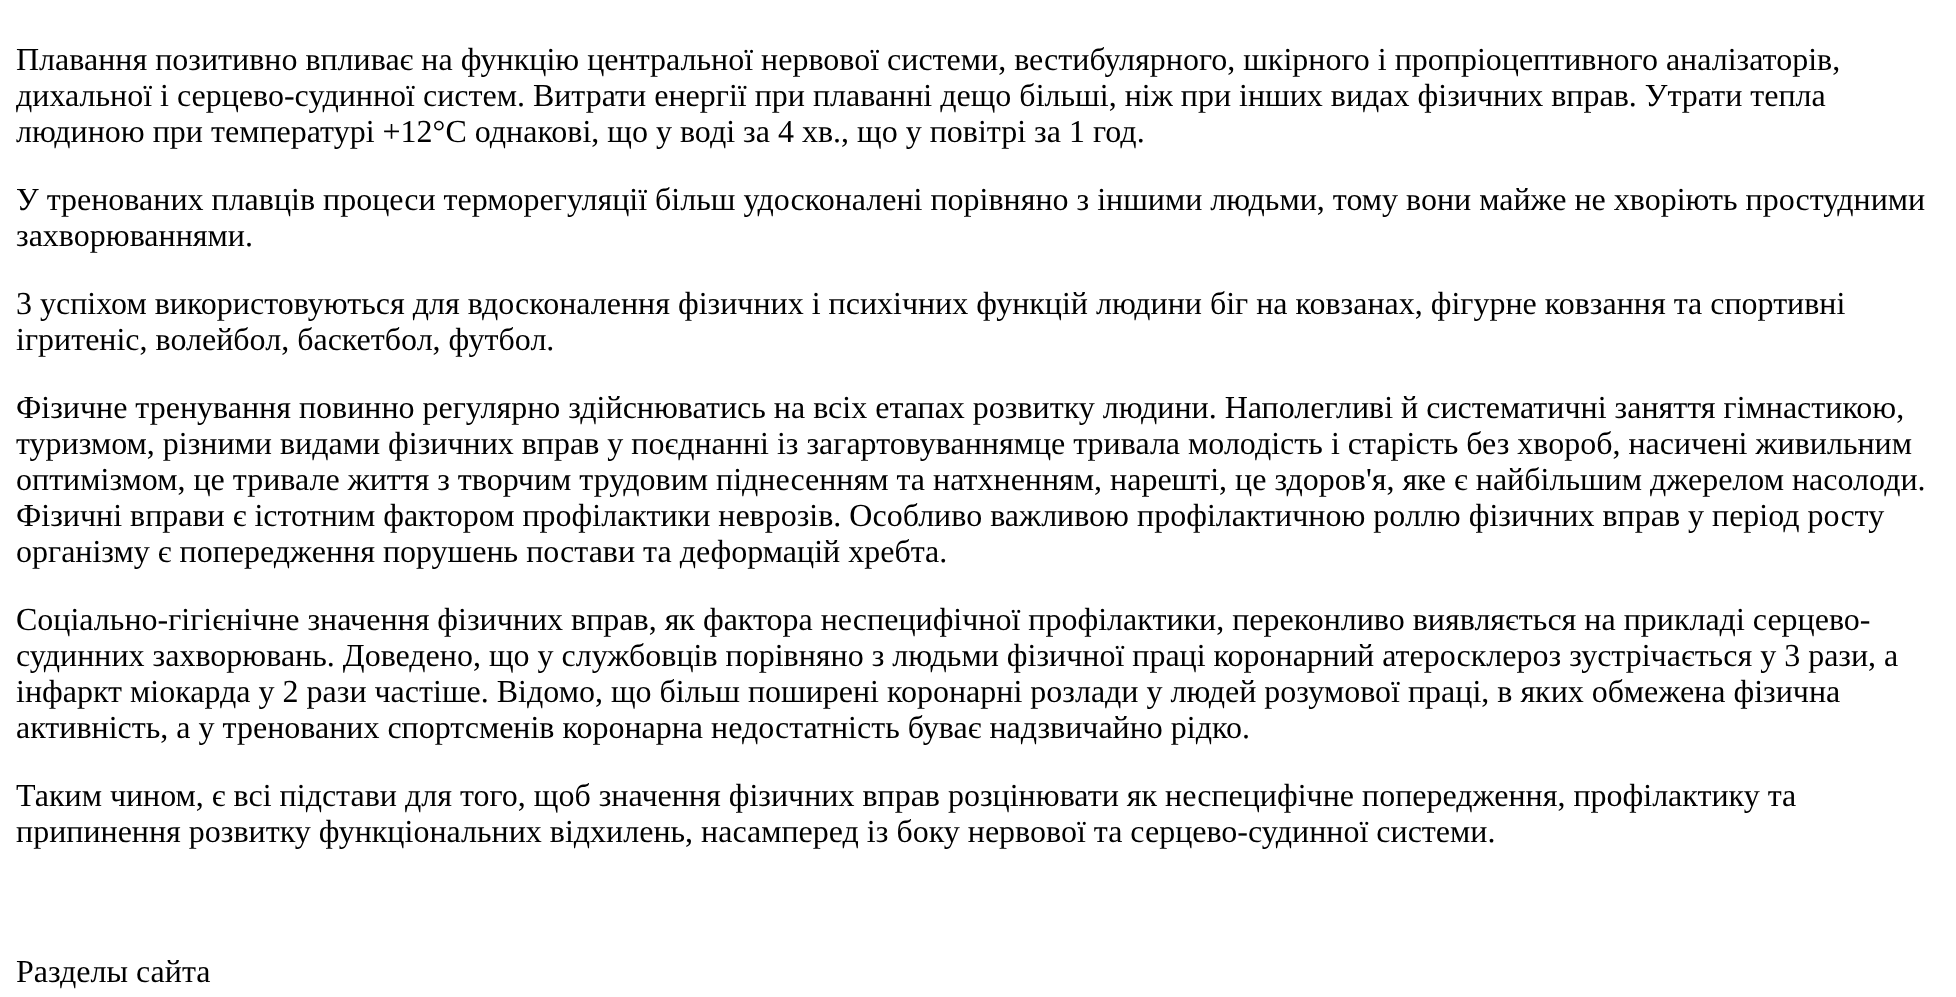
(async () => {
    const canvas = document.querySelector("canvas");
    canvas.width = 1956;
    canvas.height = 997;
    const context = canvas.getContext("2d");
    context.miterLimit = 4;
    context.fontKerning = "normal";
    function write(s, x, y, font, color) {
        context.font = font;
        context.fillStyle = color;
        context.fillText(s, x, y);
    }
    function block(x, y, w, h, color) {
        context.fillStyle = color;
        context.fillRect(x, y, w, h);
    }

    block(0, 0, 1956, 997, "rgb(255, 255, 255)");
    write("Плавання позитивно впливає на функцію центральної нервової системи, вестибулярного, шкірного і пропріоцептивного аналізаторів,", 16, 70, "32px Liberation Serif", "rgb(0, 0, 0)");
    write("дихальної і серцево-судинної систем. Витрати енергії при плаванні дещо більші, ніж при інших видах фізичних вправ. Утрати тепла", 16, 106, "32px Liberation Serif", "rgb(0, 0, 0)");
    write("людиною при температурі +12°С однакові, що у воді за 4 хв., що у повітрі за 1 год.", 16, 142, "32px Liberation Serif", "rgb(0, 0, 0)");
    write("У тренованих плавців процеси терморегуляції більш удосконалені порівняно з іншими людьми, тому вони майже не хворіють простудними", 16, 210, "32px Liberation Serif", "rgb(0, 0, 0)");
    write("захворюваннями.", 16, 246, "32px Liberation Serif", "rgb(0, 0, 0)");
    write("3 успіхом використовуються для вдосконалення фізичних і психічних функцій людини біг на ковзанах, фігурне ковзання та спортивні", 16, 314, "32px Liberation Serif", "rgb(0, 0, 0)");
    write("ігритеніс, волейбол, баскетбол, футбол.", 16, 350, "32px Liberation Serif", "rgb(0, 0, 0)");
    write("Фізичне тренування повинно регулярно здійснюватись на всіх етапах розвитку людини. Наполегливі й систематичні заняття гімнастикою,", 16, 418, "32px Liberation Serif", "rgb(0, 0, 0)");
    write("туризмом, різними видами фізичних вправ у поєднанні із загартовуваннямце тривала молодість і старість без хвороб, насичені живильним", 16, 454, "32px Liberation Serif", "rgb(0, 0, 0)");
    write("оптимізмом, це тривале життя з творчим трудовим піднесенням та натхненням, нарешті, це здоров'я, яке є найбільшим джерелом насолоди.", 16, 490, "32px Liberation Serif", "rgb(0, 0, 0)");
    write("Фізичні вправи є істотним фактором профілактики неврозів. Особливо важливою профілактичною роллю фізичних вправ у період росту", 16, 526, "32px Liberation Serif", "rgb(0, 0, 0)");
    write("організму є попередження порушень постави та деформацій хребта.", 16, 562, "32px Liberation Serif", "rgb(0, 0, 0)");
    write("Соціально-гігієнічне значення фізичних вправ, як фактора неспецифічної профілактики, переконливо виявляється на прикладі серцево-", 16, 630, "32px Liberation Serif", "rgb(0, 0, 0)");
    write("судинних захворювань. Доведено, що у службовців порівняно з людьми фізичної праці коронарний атеросклероз зустрічається у 3 рази, а", 16, 666, "32px Liberation Serif", "rgb(0, 0, 0)");
    write("інфаркт міокарда у 2 рази частіше. Відомо, що більш поширені коронарні розлади у людей розумової праці, в яких обмежена фізична", 16, 702, "32px Liberation Serif", "rgb(0, 0, 0)");
    write("активність, а у тренованих спортсменів коронарна недостатність буває надзвичайно рідко.", 16, 738, "32px Liberation Serif", "rgb(0, 0, 0)");
    write("Таким чином, є всі підстави для того, щоб значення фізичних вправ розцінювати як неспецифічне попередження, профілактику та", 16, 806, "32px Liberation Serif", "rgb(0, 0, 0)");
    write("припинення розвитку функціональних відхилень, насамперед із боку нервової та серцево-судинної системи.", 16, 842, "32px Liberation Serif", "rgb(0, 0, 0)");
    write("Разделы сайта", 16, 982, "32px Liberation Serif", "rgb(0, 0, 0)");
})();
